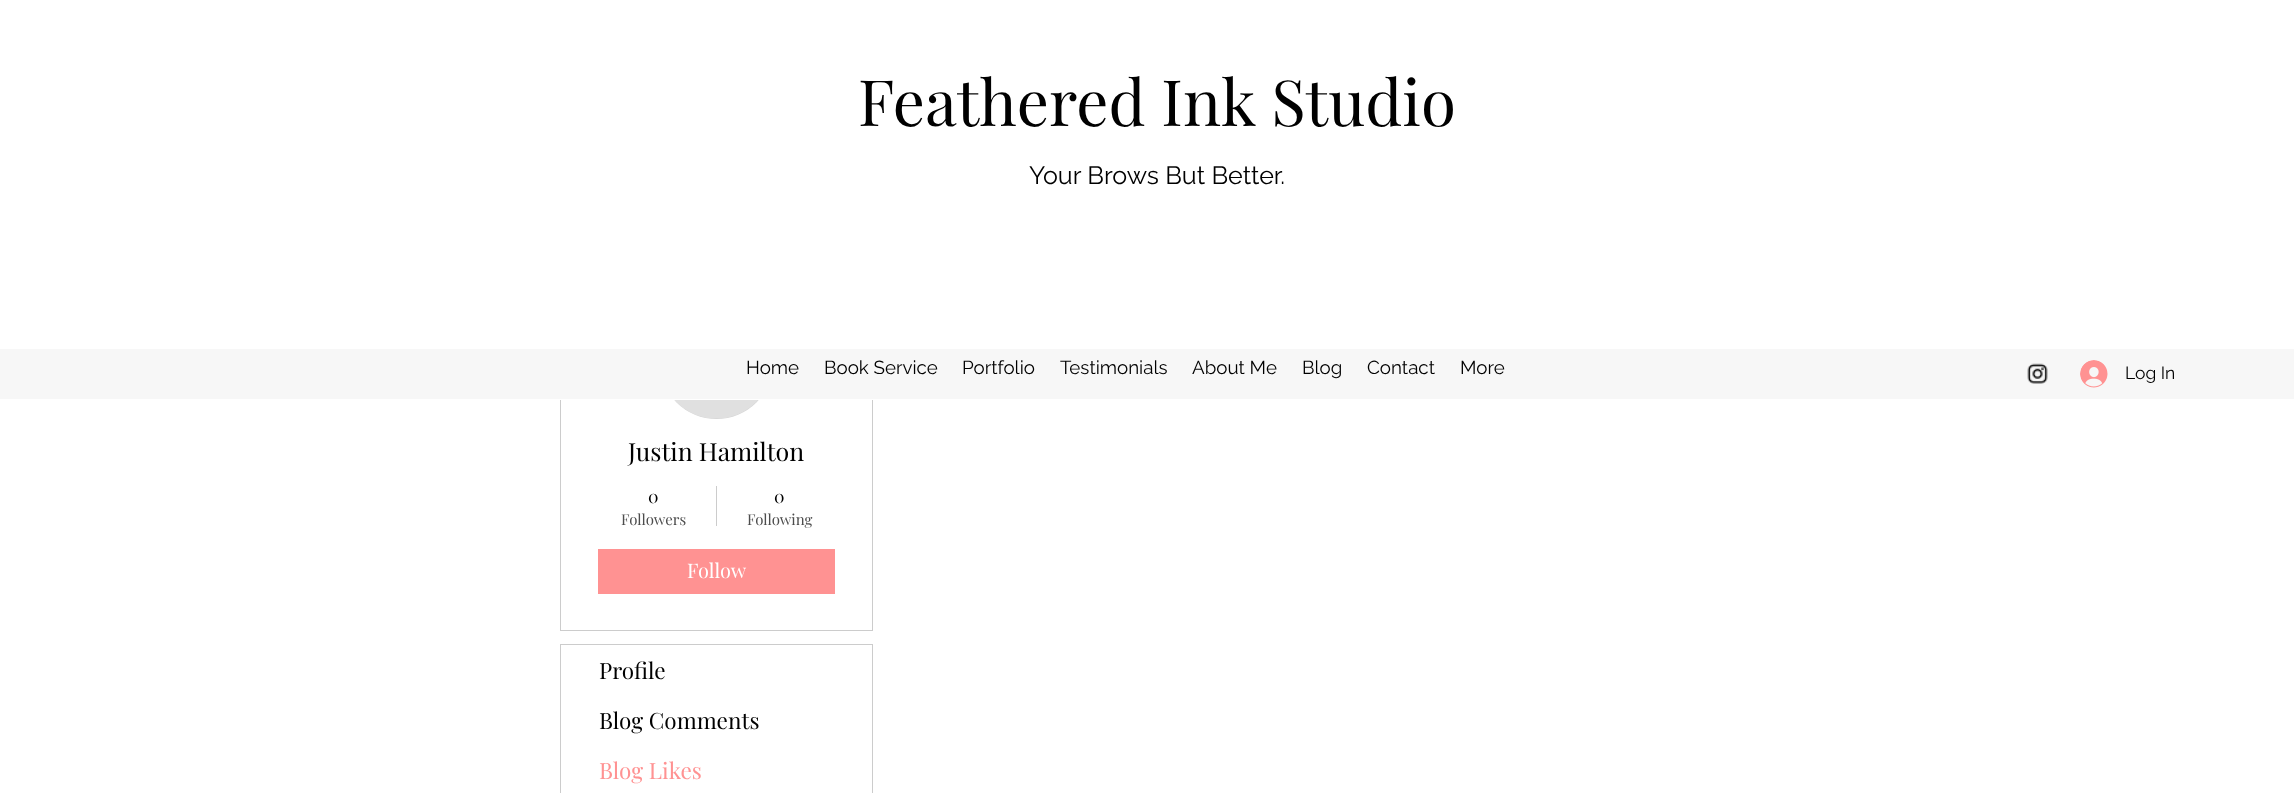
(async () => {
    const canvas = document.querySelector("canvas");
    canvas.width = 2294;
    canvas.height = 793;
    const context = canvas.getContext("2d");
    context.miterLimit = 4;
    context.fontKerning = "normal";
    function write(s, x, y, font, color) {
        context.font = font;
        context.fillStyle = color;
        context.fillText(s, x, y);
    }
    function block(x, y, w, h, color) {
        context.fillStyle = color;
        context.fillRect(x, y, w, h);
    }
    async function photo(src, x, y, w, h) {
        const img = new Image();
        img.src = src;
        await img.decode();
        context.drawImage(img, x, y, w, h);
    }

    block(0, 0, 2294, 793, "rgb(255, 255, 255)");
    context.strokeStyle = "rgb(204, 204, 204)";
    context.strokeRect(560.5, 269.5, 312, 361);
    context.fillStyle = "rgb(216, 216, 216)";
    context.beginPath();
    context.arc(716.5, 362.5, 56.5, 0, Math.PI * 2);
    context.fill();
    block(560, 269, 313, 131, "rgb(255, 255, 255)");
    write("Feathered Ink Studio", 858, 126, "63.75px Playfair Display", "rgb(0, 0, 0)");
    write("Your Brows But Better.", 1029, 184, "25px Raleway", "rgb(0, 0, 0)");
    block(0, 349, 2294, 50, "rgb(247, 247, 247)");
    write("Home", 746, 374, "18.75px Raleway", "rgb(0, 0, 0)");
    write("Book Service", 824, 374, "18.75px Raleway", "rgb(0, 0, 0)");
    write("Portfolio", 962, 374, "18.75px Raleway", "rgb(0, 0, 0)");
    write("Testimonials", 1060, 374, "18.75px Raleway", "rgb(0, 0, 0)");
    write("About Me", 1192, 374, "18.75px Raleway", "rgb(0, 0, 0)");
    write("Blog", 1302, 374, "18.75px Raleway", "rgb(0, 0, 0)");
    write("Contact", 1367, 374, "18.75px Raleway", "rgb(0, 0, 0)");
    write("More", 1460, 374, "18.75px Raleway", "rgb(0, 0, 0)");
    await photo("media/1.png", 2027, 363, 21, 21);
    await photo("media/2.png", 2080, 360, 28, 28);
    write("Log In", 2125, 379, "17.5px Raleway", "rgb(0, 0, 0)");
    await photo("media/3.png", 674, 400, 84, 18);
    write("Justin Hamilton", 628, 461, "25px Playfair Display", "rgb(0, 0, 0)");
    write("0", 648, 503, "17.5px Playfair Display", "rgb(0, 0, 0)");
    write("Followers", 621, 525, "15px Playfair Display", "rgb(77, 77, 77)");
    block(716, 486, 1, 40, "rgb(204, 204, 204)");
    write("0", 774, 503, "17.5px Playfair Display", "rgb(0, 0, 0)");
    write("Following", 747, 525, "15px Playfair Display", "rgb(77, 77, 77)");
    block(598, 549, 237, 45, "rgb(255, 146, 146)");
    write("Follow", 687, 578, "20px Playfair Display", "rgb(255, 255, 255)");
    context.strokeRect(560.5, 644.5, 312, 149);
    write("Profile", 599, 679, "22.5px Playfair Display", "rgb(0, 0, 0)");
    write("Blog Comments", 599, 729, "22.5px Playfair Display", "rgb(0, 0, 0)");
    write("Blog Likes", 599, 779, "22.5px Playfair Display", "rgb(255, 146, 146)");
})();
